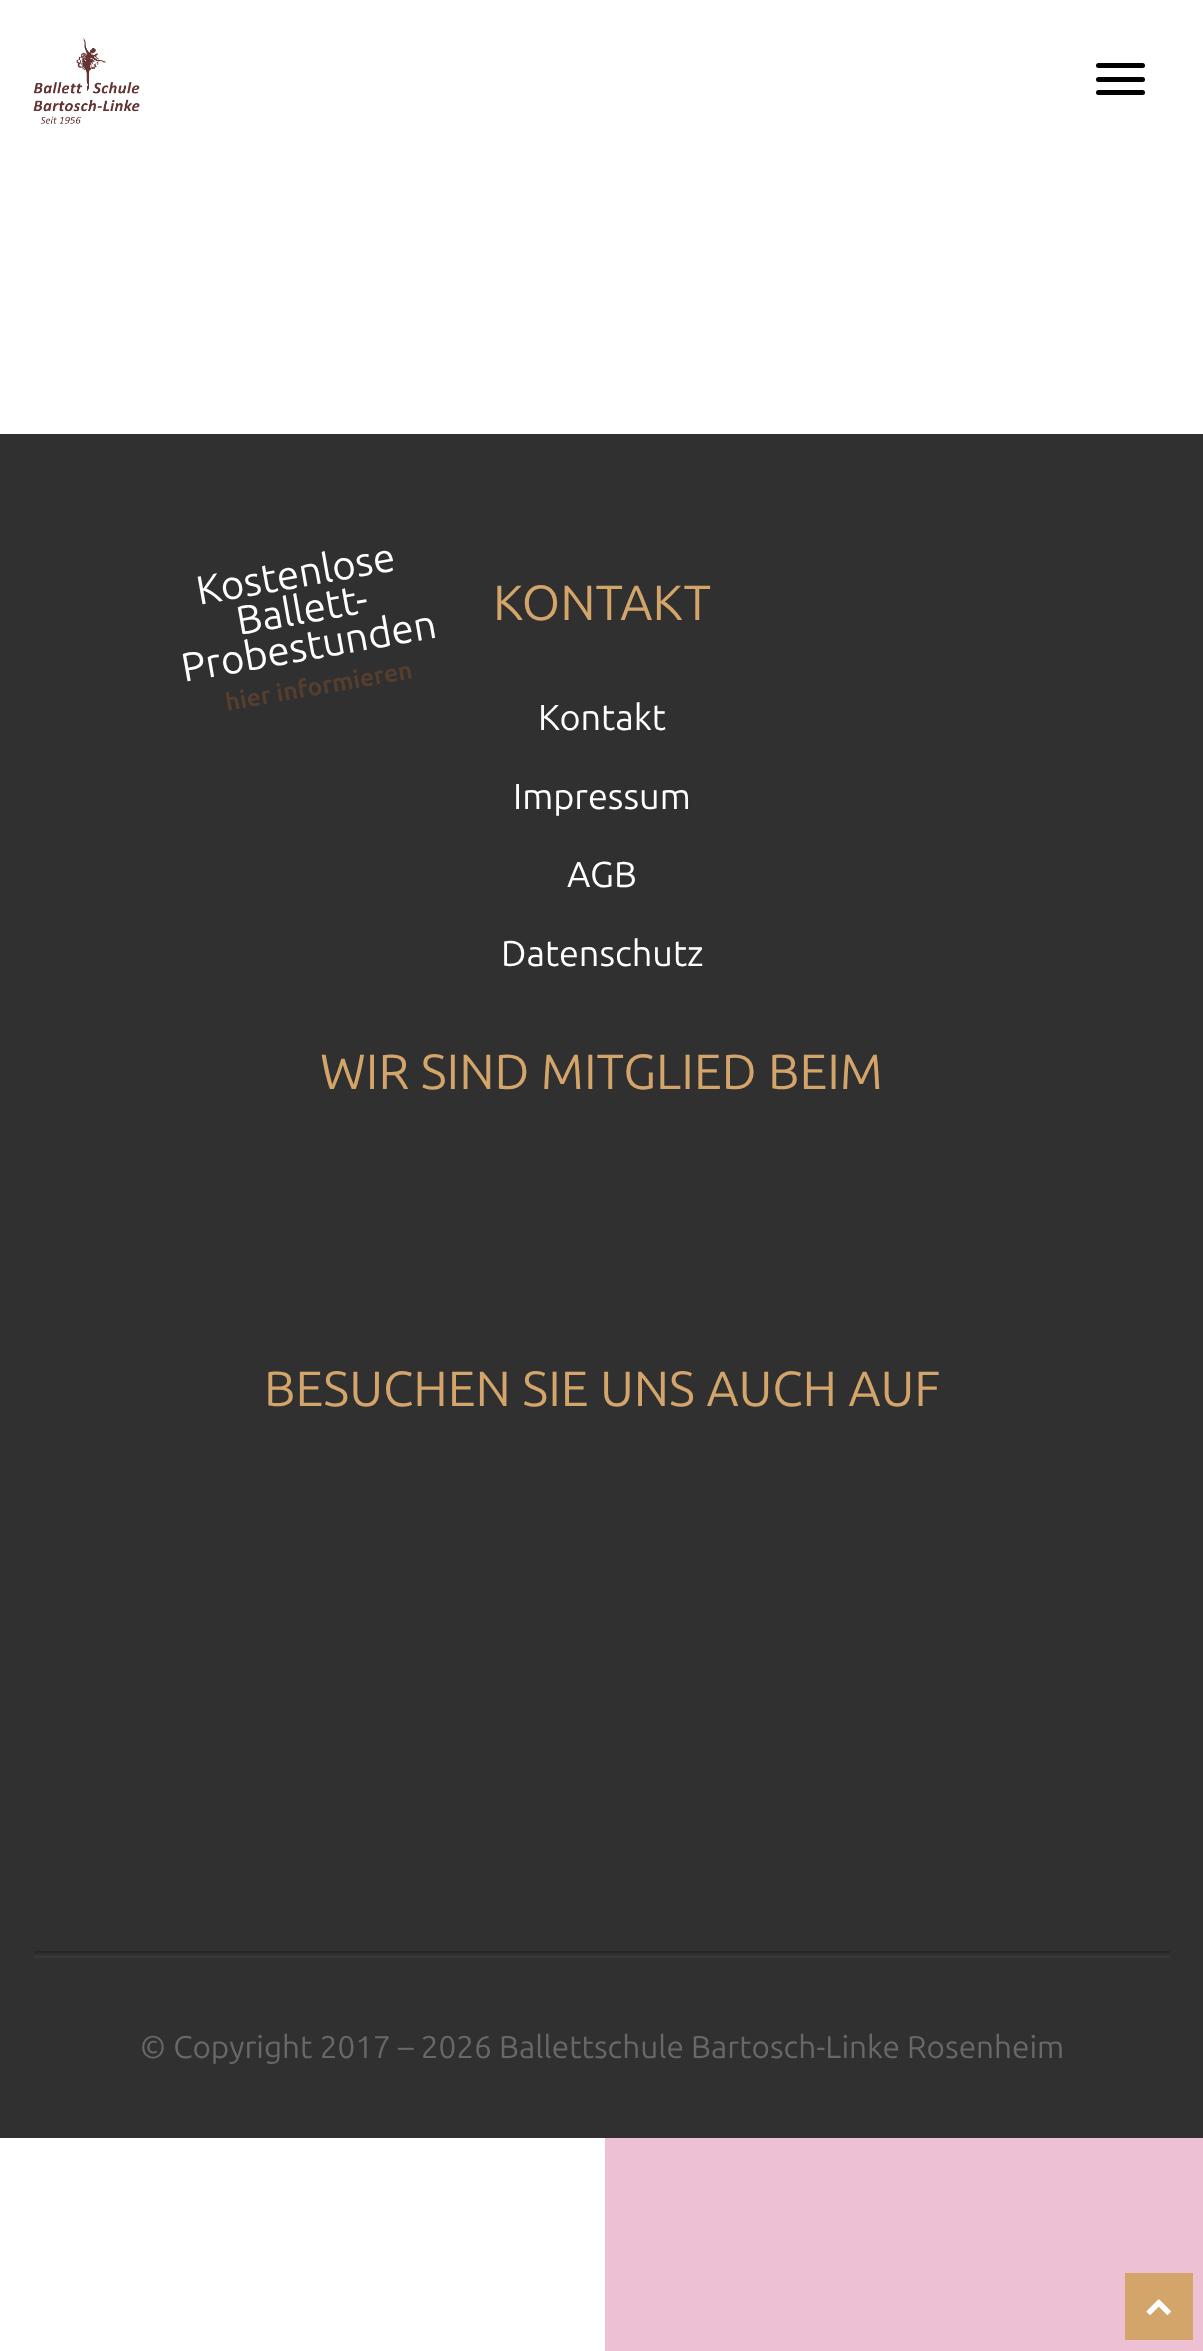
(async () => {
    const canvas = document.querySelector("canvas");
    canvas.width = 1203;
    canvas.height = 2351;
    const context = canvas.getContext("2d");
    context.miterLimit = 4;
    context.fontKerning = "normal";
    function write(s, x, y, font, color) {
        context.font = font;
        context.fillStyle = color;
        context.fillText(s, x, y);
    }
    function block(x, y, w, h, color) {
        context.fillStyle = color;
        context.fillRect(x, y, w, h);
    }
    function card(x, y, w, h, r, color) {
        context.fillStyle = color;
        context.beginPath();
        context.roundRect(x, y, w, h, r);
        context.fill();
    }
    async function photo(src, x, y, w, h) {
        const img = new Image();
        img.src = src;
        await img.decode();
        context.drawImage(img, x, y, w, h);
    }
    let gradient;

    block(0, 0, 1203, 2351, "rgb(255, 255, 255)");
    await photo("media/1.png", 33, 38, 107, 86);
    card(1096, 63, 49, 5, 2.5, "rgb(0, 0, 0)");
    card(1096, 77, 49, 5, 2.5, "rgb(0, 0, 0)");
    card(1096, 90, 49, 5, 2.5, "rgb(0, 0, 0)");
    block(0, 434, 1203, 1704, "rgb(48, 48, 48)");
    context.font = "40.5px Ubuntu";
    context.fillStyle = "rgb(255, 255, 255)";
    context.save();
    context.translate(199, 605);
    context.rotate(-10 * Math.PI / 180);
    context.fillText("Kostenlose", 0, 0);
    context.restore();
    context.save();
    context.translate(239, 635);
    context.rotate(-10 * Math.PI / 180);
    context.fillText("Ballett-", 0, 0);
    context.restore();
    context.save();
    context.translate(184, 682);
    context.rotate(-10 * Math.PI / 180);
    context.fillText("Probestunden", 0, 0);
    context.restore();
    context.font = "bold 24.75px Ubuntu";
    context.fillStyle = "rgb(85, 62, 46)";
    context.save();
    context.translate(227, 711);
    context.rotate(-10 * Math.PI / 180);
    context.fillText("hier informieren", 0, 0);
    context.restore();
    write("KONTAKT", 493, 620, "49.5px Ubuntu", "rgb(212, 165, 107)");
    write("Kontakt", 538, 730, "36px Ubuntu", "rgb(255, 255, 255)");
    write("Impressum", 513, 809, "36px Ubuntu", "rgb(255, 255, 255)");
    write("AGB", 567, 887, "36px Ubuntu", "rgb(255, 255, 255)");
    write("Datenschutz", 501, 966, "36px Ubuntu", "rgb(255, 255, 255)");
    write("WIR SIND MITGLIED BEIM", 320, 1089, "49.5px Ubuntu", "rgb(212, 165, 107)");
    write("BESUCHEN SIE UNS AUCH AUF", 264, 1406, "49.5px Ubuntu", "rgb(212, 165, 107)");
    gradient = context.createLinearGradient(602, 1951, 602, 1958);
    gradient.addColorStop(0, "rgb(36, 36, 36)");
    gradient.addColorStop(1, "rgb(60, 60, 60)");
    context.fillStyle = gradient;
    context.fillRect(34, 1951, 1136, 7);
    write("© Copyright 2017 – 2026 Ballettschule Bartosch-Linke Rosenheim", 140, 2058, "31.5px Ubuntu", "rgb(104, 104, 104)");
    block(605, 2138, 598, 213, "rgb(237, 192, 212)");
    block(1125, 2273, 68, 67, "rgb(212, 165, 107)");
    await photo("media/2.png", 1146, 2299, 25, 16);
})();
